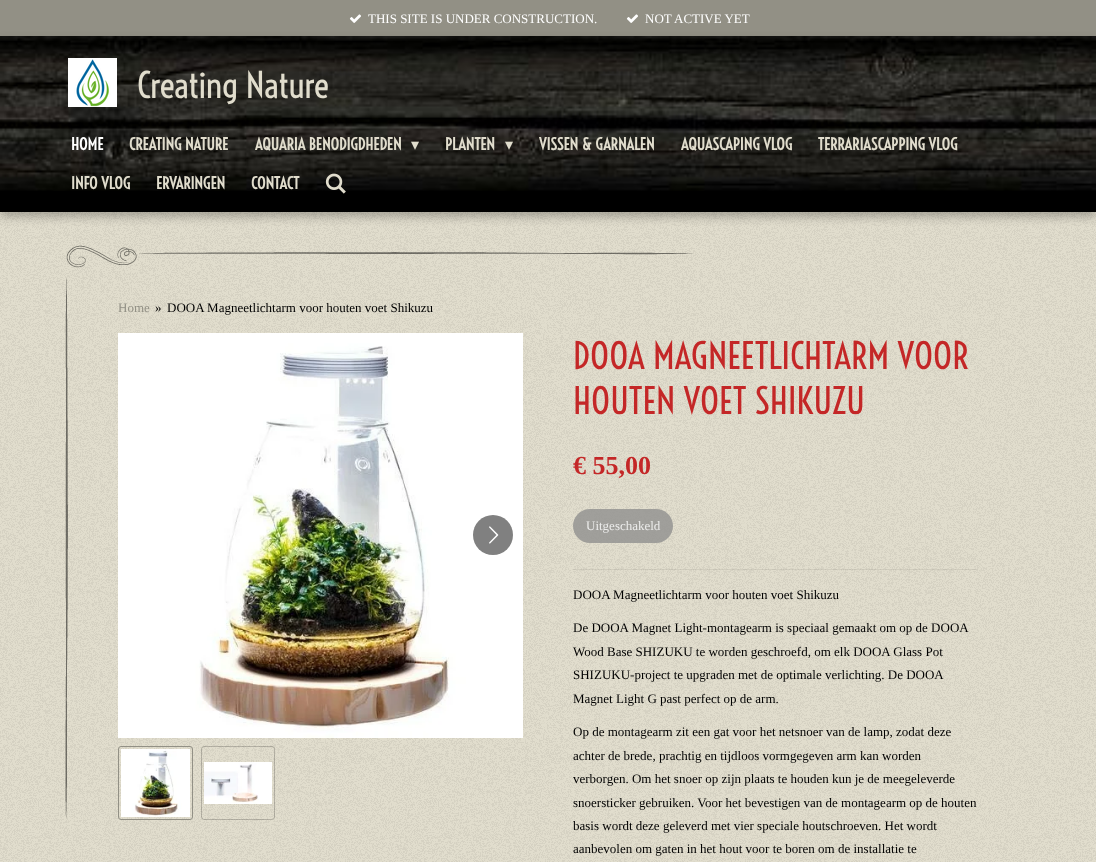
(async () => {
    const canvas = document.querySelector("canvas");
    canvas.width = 1096;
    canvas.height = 862;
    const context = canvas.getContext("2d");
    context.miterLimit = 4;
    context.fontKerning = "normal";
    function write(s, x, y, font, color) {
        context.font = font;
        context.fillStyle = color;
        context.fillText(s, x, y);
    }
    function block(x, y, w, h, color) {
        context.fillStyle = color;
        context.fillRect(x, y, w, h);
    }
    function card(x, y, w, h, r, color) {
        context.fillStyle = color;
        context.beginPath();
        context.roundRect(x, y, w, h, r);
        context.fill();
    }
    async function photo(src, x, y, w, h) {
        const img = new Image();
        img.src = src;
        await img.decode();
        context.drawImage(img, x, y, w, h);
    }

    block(0, 0, 1096, 862, "rgb(225, 221, 205)");
    block(0, 0, 1096, 36, "rgb(146, 144, 133)");
    await photo("media/1.png", 349, 14, 12, 9);
    write("THIS SITE IS UNDER CONSTRUCTION.", 368, 23, "13px Liberation Serif", "rgb(255, 255, 255)");
    await photo("media/1.png", 626, 14, 12, 9);
    write("NOT ACTIVE YET", 645, 23, "13px Liberation Serif", "rgb(255, 255, 255)");
    await photo("media/11.png", 0, 212, 1096, 650);
    context.fillStyle = "rgba(0, 0, 0, 0.25)";
    context.filter = "blur(5px)";
    context.beginPath();
    context.rect(0, 41, 1096, 176);
    context.fill();
    context.filter = "none";
    block(0, 191, 1096, 21, "rgb(0, 0, 0)");
    await photo("media/2.png", 0, 36, 1096, 155);
    await photo("media/3.png", 68, 58, 49, 49);
    write("Creating Nature", 137, 98, "35px Voltaire", "rgb(225, 221, 205)");
    write("HOME", 71, 150, "bold 16px Voltaire", "rgb(255, 255, 255)");
    write("CREATING NATURE", 129, 150, "bold 16px Voltaire", "rgb(225, 221, 205)");
    write("AQUARIA BENODIGDHEDEN", 255, 150, "bold 16px Voltaire", "rgb(225, 221, 205)");
    write("▾", 411, 150, "16px DejaVu Sans", "rgb(225, 221, 205)");
    write("PLANTEN", 445, 150, "bold 16px Voltaire", "rgb(225, 221, 205)");
    write("▾", 505, 150, "16px DejaVu Sans", "rgb(225, 221, 205)");
    write("VISSEN & GARNALEN", 539, 150, "bold 16px Voltaire", "rgb(225, 221, 205)");
    write("AQUASCAPING VLOG", 681, 150, "bold 16px Voltaire", "rgb(225, 221, 205)");
    write("TERRARIASCAPPING VLOG", 818, 150, "bold 16px Voltaire", "rgb(225, 221, 205)");
    write("INFO VLOG", 71, 189, "bold 16px Voltaire", "rgb(225, 221, 205)");
    write("ERVARINGEN", 156, 189, "bold 16px Voltaire", "rgb(225, 221, 205)");
    write("CONTACT", 251, 189, "bold 16px Voltaire", "rgb(225, 221, 205)");
    await photo("media/4.png", 325, 173, 21, 21);
    await photo("media/5.png", 66, 245, 628, 23);
    await photo("media/6.png", 65, 278, 3, 541);
    write("Home", 118, 312, "13px Liberation Serif", "rgb(146, 144, 133)");
    write("»", 155, 312, "13px Liberation Serif", "rgb(0, 0, 0)");
    write("DOOA Magneetlichtarm voor houten voet Shikuzu", 167, 312, "13px Liberation Serif", "rgb(0, 0, 0)");
    await photo("media/7.png", 118, 333, 405, 405);
    context.fillStyle = "rgb(128, 128, 128)";
    context.beginPath();
    context.arc(493, 535, 20, 0, Math.PI * 2);
    context.fill();
    await photo("media/8.png", 489, 526, 10, 18);
    context.beginPath();
    context.roundRect(118.5, 746.5, 74, 73, 2.5);
    context.strokeStyle = "rgb(146, 144, 133)";
    context.stroke();
    await photo("media/9.png", 121, 749, 69, 68);
    context.beginPath();
    context.roundRect(201.5, 746.5, 73, 73, 2.5);
    context.strokeStyle = "rgba(0, 0, 0, 0.2)";
    context.stroke();
    await photo("media/10.png", 204, 762, 68, 42);
    write("DOOA MAGNEETLICHTARM VOOR", 573, 369, "36px Voltaire", "rgb(196, 39, 39)");
    write("HOUTEN VOET SHIKUZU", 573, 414, "36px Voltaire", "rgb(196, 39, 39)");
    write("€ 55,00", 573, 474, "bold 26px Liberation Serif", "rgb(196, 39, 39)");
    card(573, 509, 100, 34, 17, "rgba(144, 144, 143, 0.8)");
    write("Uitgeschakeld", 586, 530, "13px Liberation Serif", "rgb(236, 236, 235)");
    block(573, 569, 405, 1, "rgba(0, 0, 0, 0.07)");
    write("DOOA Magneetlichtarm voor houten voet Shikuzu", 573, 599, "13px Liberation Serif", "rgb(0, 0, 0)");
    write("De DOOA Magnet Light-montagearm is speciaal gemaakt om op de DOOA", 573, 632, "13px Liberation Serif", "rgb(0, 0, 0)");
    write("Wood Base SHIZUKU te worden geschroefd, om elk DOOA Glass Pot", 573, 656, "13px Liberation Serif", "rgb(0, 0, 0)");
    write("SHIZUKU-project te upgraden met de optimale verlichting. De DOOA", 573, 679, "13px Liberation Serif", "rgb(0, 0, 0)");
    write("Magnet Light G past perfect op de arm.", 573, 703, "13px Liberation Serif", "rgb(0, 0, 0)");
    write("Op de montagearm zit een gat voor het netsnoer van de lamp, zodat deze", 573, 736, "13px Liberation Serif", "rgb(0, 0, 0)");
    write("achter de brede, prachtig en tijdloos vormgegeven arm kan worden", 573, 760, "13px Liberation Serif", "rgb(0, 0, 0)");
    write("verborgen. Om het snoer op zijn plaats te houden kun je de meegeleverde", 573, 783, "13px Liberation Serif", "rgb(0, 0, 0)");
    write("snoersticker gebruiken. Voor het bevestigen van de montagearm op de houten", 573, 807, "13px Liberation Serif", "rgb(0, 0, 0)");
    write("basis wordt deze geleverd met vier speciale houtschroeven. Het wordt", 573, 830, "13px Liberation Serif", "rgb(0, 0, 0)");
    write("aanbevolen om gaten in het hout voor te boren om de installatie te", 573, 853, "13px Liberation Serif", "rgb(0, 0, 0)");
})();
